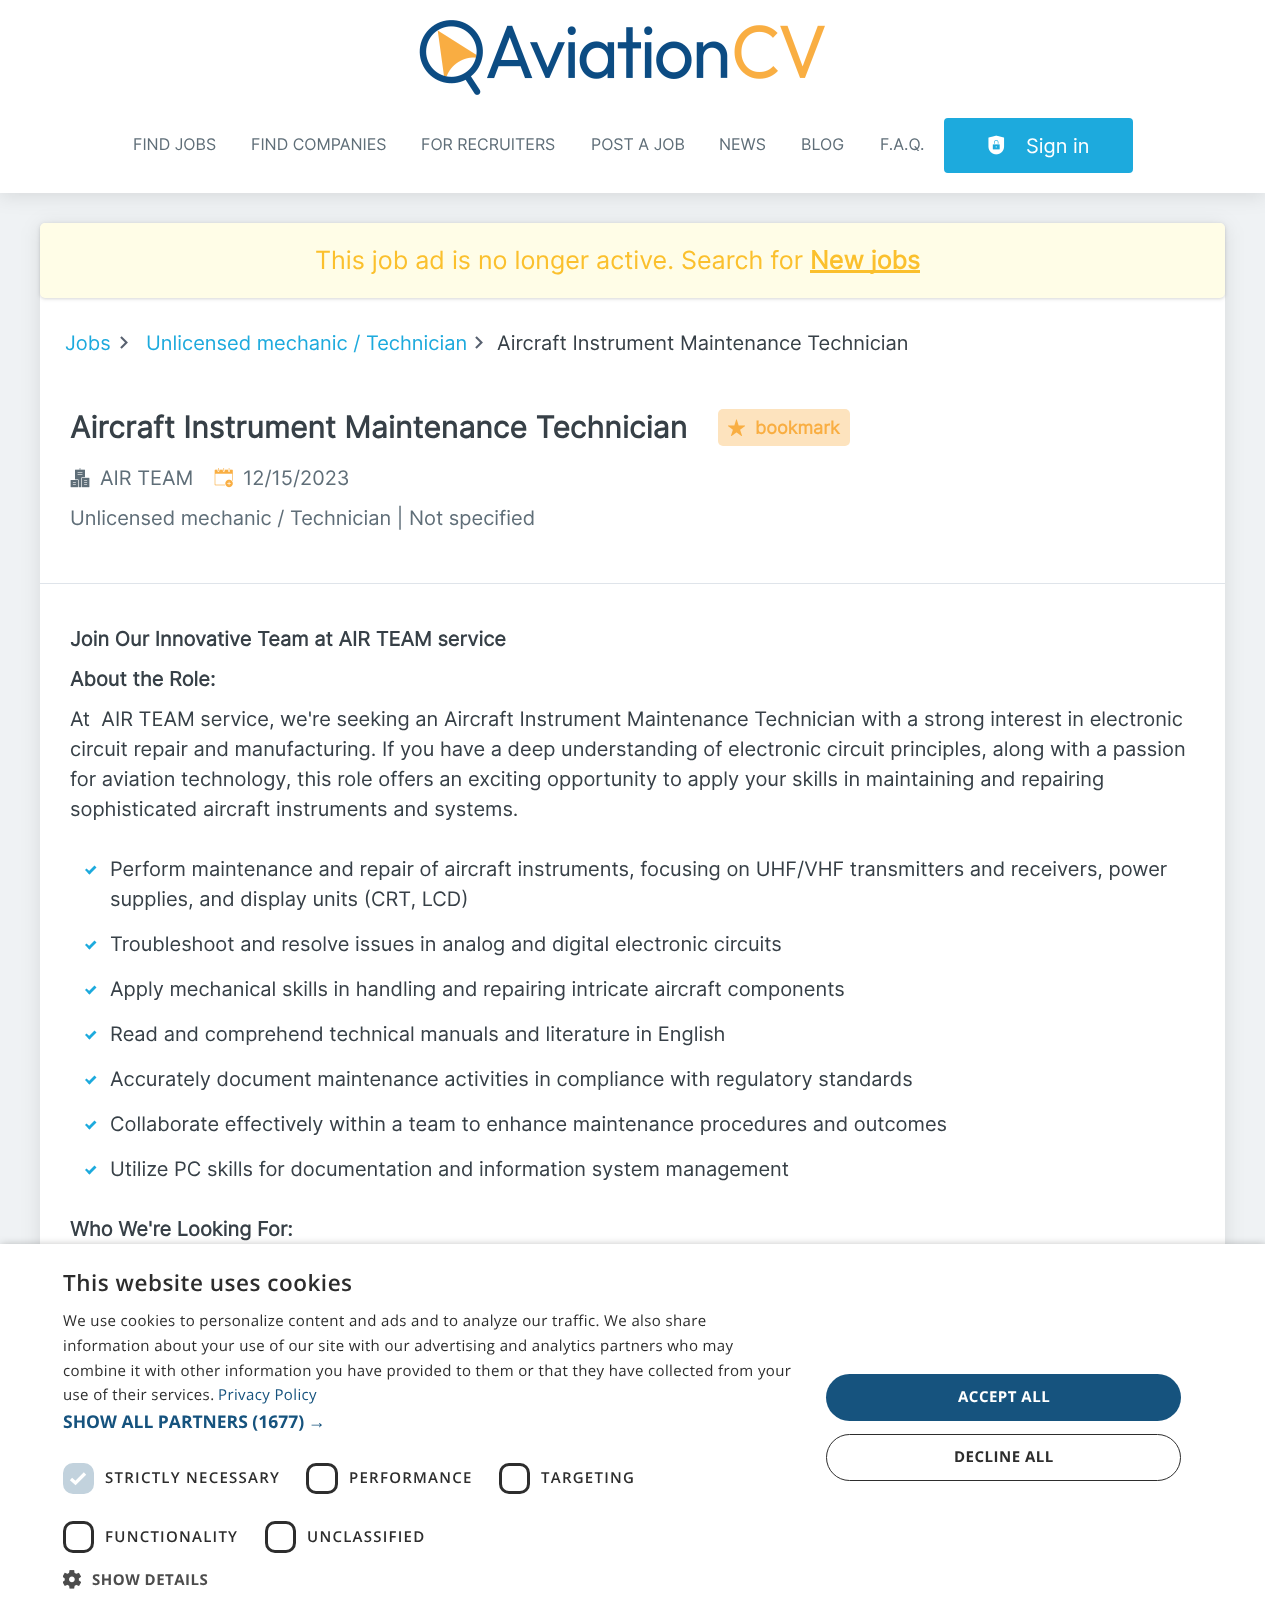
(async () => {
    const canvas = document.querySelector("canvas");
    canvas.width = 1265;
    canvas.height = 1610;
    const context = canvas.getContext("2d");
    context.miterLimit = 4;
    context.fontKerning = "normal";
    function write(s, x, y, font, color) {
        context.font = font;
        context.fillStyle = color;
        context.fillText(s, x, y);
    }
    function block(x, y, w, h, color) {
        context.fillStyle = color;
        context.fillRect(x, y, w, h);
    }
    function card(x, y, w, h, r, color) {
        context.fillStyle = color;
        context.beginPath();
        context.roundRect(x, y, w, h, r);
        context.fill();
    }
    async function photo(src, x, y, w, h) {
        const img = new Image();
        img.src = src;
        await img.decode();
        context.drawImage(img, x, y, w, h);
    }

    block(0, 0, 1265, 1610, "rgb(239, 242, 244)");
    context.fillStyle = "rgba(0, 0, 0, 0.1)";
    context.filter = "blur(9.5px)";
    context.beginPath();
    context.rect(0, 4, 1265, 192);
    context.fill();
    context.filter = "none";
    block(0, 0, 1265, 193, "rgb(255, 255, 255)");
    await photo("media/1.png", 419, 20, 406, 75);
    write("FIND JOBS", 133, 150, "16px Inter", "rgb(95, 110, 120)");
    write("FIND COMPANIES", 251, 150, "16px Inter", "rgb(95, 110, 120)");
    write("FOR RECRUITERS", 421, 150, "16px Inter", "rgb(95, 110, 120)");
    write("POST A JOB", 591, 150, "16px Inter", "rgb(95, 110, 120)");
    write("NEWS", 719, 150, "16px Inter", "rgb(95, 110, 120)");
    write("BLOG", 801, 150, "16px Inter", "rgb(95, 110, 120)");
    write("F.A.Q.", 880, 150, "16px Inter", "rgb(95, 110, 120)");
    context.fillStyle = "rgb(29, 170, 221)";
    context.beginPath();
    context.roundRect(945.5, 119.5, 186, 52, 2.5);
    context.fill();
    context.strokeStyle = "rgb(29, 170, 221)";
    context.lineWidth = 3;
    context.stroke();
    await photo("media/2.png", 988, 135, 17, 20);
    write("Sign in", 1026, 153, "20px Inter", "rgb(255, 255, 255)");
    context.fillStyle = "rgba(0, 0, 0, 0.1)";
    context.filter = "blur(9.5px)";
    context.beginPath();
    context.roundRect(40, 226, 1185, 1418, 5);
    context.fill();
    context.filter = "none";
    card(40, 223, 1185, 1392, 5, "rgb(255, 255, 255)");
    context.fillStyle = "rgba(0, 0, 0, 0.06)";
    context.filter = "blur(1px)";
    context.beginPath();
    context.roundRect(40, 224, 1185, 75, 5);
    context.fill();
    context.filter = "none";
    context.fillStyle = "rgba(0, 0, 0, 0.1)";
    context.filter = "blur(2px)";
    context.beginPath();
    context.roundRect(40, 224, 1185, 75, 5);
    context.fill();
    context.filter = "none";
    context.fillStyle = "rgb(255, 253, 231)";
    context.beginPath();
    context.roundRect(41.5, 224.5, 1182, 72, 3.5);
    context.fill();
    context.strokeStyle = "rgb(255, 253, 231)";
    context.stroke();
    write("This job ad is no longer active. Search for", 315, 269, "25px Inter", "rgb(251, 192, 45)");
    block(810, 270, 110, 3, "rgb(251, 192, 45)");
    write("New jobs", 810, 269, "bold 25px Inter", "rgb(251, 192, 45)");
    write("Jobs", 65, 350, "20px Inter", "rgb(29, 170, 221)");
    await photo("media/3.png", 120, 336, 8, 13);
    write("Unlicensed mechanic / Technician", 146, 350, "20px Inter", "rgb(29, 170, 221)");
    await photo("media/3.png", 475, 336, 8, 13);
    write("Aircraft Instrument Maintenance Technician", 497, 350, "20px Inter", "rgb(55, 64, 71)");
    block(40, 583, 1185, 1, "rgb(223, 228, 234)");
    write("Aircraft Instrument Maintenance Technician", 70, 438, "bold 30px Inter", "rgb(55, 64, 71)");
    card(718, 409, 132, 37, 5, "rgb(253, 227, 190)");
    await photo("media/4.png", 728, 419, 17, 17);
    write("bookmark", 755, 434, "bold 18px Inter", "rgb(249, 174, 66)");
    await photo("media/5.png", 70, 468, 20, 20);
    write("AIR TEAM", 100, 485, "20px Inter", "rgb(95, 110, 120)");
    await photo("media/6.png", 214, 468, 19, 20);
    write("12/15/2023", 243, 485, "20px Inter", "rgb(95, 110, 120)");
    write("Unlicensed mechanic / Technician | Not specified", 70, 525, "20px Inter", "rgb(95, 110, 120)");
    write("Join Our Innovative Team at AIR TEAM service", 70, 646, "bold 20px Inter", "rgb(55, 64, 71)");
    write("About the Role:", 70, 686, "bold 20px Inter", "rgb(55, 64, 71)");
    write("At  AIR TEAM service, we're seeking an Aircraft Instrument Maintenance Technician with a strong interest in electronic", 70, 726, "20px Inter", "rgb(55, 64, 71)");
    write("circuit repair and manufacturing. If you have a deep understanding of electronic circuit principles, along with a passion", 70, 756, "20px Inter", "rgb(55, 64, 71)");
    write("for aviation technology, this role offers an exciting opportunity to apply your skills in maintaining and repairing", 70, 786, "20px Inter", "rgb(55, 64, 71)");
    write("sophisticated aircraft instruments and systems.", 70, 816, "20px Inter", "rgb(55, 64, 71)");
    context.fillStyle = "rgb(29, 170, 221)";
    context.beginPath();
    context.moveTo(94.5, 865.5);
    context.lineTo(96.5, 867.5);
    context.lineTo(89.5, 874.5);
    context.lineTo(87.5, 872.5);
    context.closePath();
    context.fill();
    context.beginPath();
    context.moveTo(86.5, 868.5);
    context.lineTo(91, 872.5);
    context.lineTo(89.5, 874.5);
    context.lineTo(85, 870);
    context.closePath();
    context.fill();
    write("Perform maintenance and repair of aircraft instruments, focusing on UHF/VHF transmitters and receivers, power", 110, 876, "20px Inter", "rgb(55, 64, 71)");
    write("supplies, and display units (CRT, LCD)", 110, 906, "20px Inter", "rgb(55, 64, 71)");
    context.fillStyle = "rgb(29, 170, 221)";
    context.beginPath();
    context.moveTo(94.5, 940.5);
    context.lineTo(96.5, 942.5);
    context.lineTo(89.5, 949.5);
    context.lineTo(87.5, 947.5);
    context.closePath();
    context.fill();
    context.beginPath();
    context.moveTo(86.5, 943.5);
    context.lineTo(91, 947.5);
    context.lineTo(89.5, 949.5);
    context.lineTo(85, 945);
    context.closePath();
    context.fill();
    write("Troubleshoot and resolve issues in analog and digital electronic circuits", 110, 951, "20px Inter", "rgb(55, 64, 71)");
    context.fillStyle = "rgb(29, 170, 221)";
    context.beginPath();
    context.moveTo(94.5, 985.5);
    context.lineTo(96.5, 987.5);
    context.lineTo(89.5, 994.5);
    context.lineTo(87.5, 992.5);
    context.closePath();
    context.fill();
    context.beginPath();
    context.moveTo(86.5, 988.5);
    context.lineTo(91, 992.5);
    context.lineTo(89.5, 994.5);
    context.lineTo(85, 990);
    context.closePath();
    context.fill();
    write("Apply mechanical skills in handling and repairing intricate aircraft components", 110, 996, "20px Inter", "rgb(55, 64, 71)");
    context.fillStyle = "rgb(29, 170, 221)";
    context.beginPath();
    context.moveTo(94.5, 1030.5);
    context.lineTo(96.5, 1032.5);
    context.lineTo(89.5, 1039.5);
    context.lineTo(87.5, 1037.5);
    context.closePath();
    context.fill();
    context.beginPath();
    context.moveTo(86.5, 1033.5);
    context.lineTo(91, 1037.5);
    context.lineTo(89.5, 1039.5);
    context.lineTo(85, 1035);
    context.closePath();
    context.fill();
    write("Read and comprehend technical manuals and literature in English", 110, 1041, "20px Inter", "rgb(55, 64, 71)");
    context.fillStyle = "rgb(29, 170, 221)";
    context.beginPath();
    context.moveTo(94.5, 1075.5);
    context.lineTo(96.5, 1077.5);
    context.lineTo(89.5, 1084.5);
    context.lineTo(87.5, 1082.5);
    context.closePath();
    context.fill();
    context.beginPath();
    context.moveTo(86.5, 1078.5);
    context.lineTo(91, 1082.5);
    context.lineTo(89.5, 1084.5);
    context.lineTo(85, 1080);
    context.closePath();
    context.fill();
    write("Accurately document maintenance activities in compliance with regulatory standards", 110, 1086, "20px Inter", "rgb(55, 64, 71)");
    context.fillStyle = "rgb(29, 170, 221)";
    context.beginPath();
    context.moveTo(94.5, 1120.5);
    context.lineTo(96.5, 1122.5);
    context.lineTo(89.5, 1129.5);
    context.lineTo(87.5, 1127.5);
    context.closePath();
    context.fill();
    context.beginPath();
    context.moveTo(86.5, 1123.5);
    context.lineTo(91, 1127.5);
    context.lineTo(89.5, 1129.5);
    context.lineTo(85, 1125);
    context.closePath();
    context.fill();
    write("Collaborate effectively within a team to enhance maintenance procedures and outcomes", 110, 1131, "20px Inter", "rgb(55, 64, 71)");
    context.fillStyle = "rgb(29, 170, 221)";
    context.beginPath();
    context.moveTo(94.5, 1165.5);
    context.lineTo(96.5, 1167.5);
    context.lineTo(89.5, 1174.5);
    context.lineTo(87.5, 1172.5);
    context.closePath();
    context.fill();
    context.beginPath();
    context.moveTo(86.5, 1168.5);
    context.lineTo(91, 1172.5);
    context.lineTo(89.5, 1174.5);
    context.lineTo(85, 1170);
    context.closePath();
    context.fill();
    write("Utilize PC skills for documentation and information system management", 110, 1176, "20px Inter", "rgb(55, 64, 71)");
    write("Who We're Looking For:", 70, 1236, "bold 20px Inter", "rgb(55, 64, 71)");
    context.fillStyle = "rgba(0, 0, 0, 0.35)";
    context.filter = "blur(5px)";
    context.beginPath();
    context.rect(1, 1246, 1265, 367);
    context.fill();
    context.filter = "none";
    block(0, 1244, 1265, 366, "rgb(255, 255, 255)");
    context.letterSpacing = "0.5px";
    write("This website uses cookies", 63, 1291, "600 22.5px Open Sans", "rgb(45, 45, 45)");
    context.letterSpacing = "0.38px";
    write("We use cookies to personalize content and ads and to analyze our traffic. We also share", 63, 1326, "15px Open Sans", "rgb(45, 45, 45)");
    write("information about your use of our site with our advertising and analytics partners who may", 63, 1351, "15px Open Sans", "rgb(45, 45, 45)");
    write("combine it with other information you have provided to them or that they have collected from your", 63, 1376, "15px Open Sans", "rgb(45, 45, 45)");
    write("use of their services.", 63, 1400, "15px Open Sans", "rgb(45, 45, 45)");
    write("Privacy Policy", 218, 1400, "15px Open Sans", "rgb(22, 83, 126)");
    context.letterSpacing = "0px";
    write("SHOW ALL PARTNERS (1677)", 63, 1428, "bold 17.5px Open Sans", "rgb(22, 83, 126)");
    write("→", 308, 1428, "bold 17.5px Liberation Sans", "rgb(22, 83, 126)");
    card(63, 1463, 31, 31, 10, "rgb(194, 210, 221)");
    context.beginPath();
    context.moveTo(71, 1479);
    context.lineTo(75.5, 1483);
    context.lineTo(85, 1473.5);
    context.strokeStyle = "rgb(255, 255, 255)";
    context.lineWidth = 3.3;
    context.stroke();
    context.letterSpacing = "1.25px";
    write("STRICTLY NECESSARY", 105, 1483, "600 15px Open Sans", "rgb(45, 45, 45)");
    context.beginPath();
    context.roundRect(307.5, 1464.5, 29, 28, 8.5);
    context.strokeStyle = "rgb(45, 45, 45)";
    context.lineWidth = 3;
    context.stroke();
    write("PERFORMANCE", 349, 1483, "600 15px Open Sans", "rgb(45, 45, 45)");
    context.beginPath();
    context.roundRect(500.5, 1464.5, 28, 28, 8.5);
    context.stroke();
    write("TARGETING", 541, 1483, "600 15px Open Sans", "rgb(45, 45, 45)");
    context.beginPath();
    context.roundRect(64.5, 1522.5, 28, 29, 8.5);
    context.stroke();
    write("FUNCTIONALITY", 105, 1542, "600 15px Open Sans", "rgb(45, 45, 45)");
    context.beginPath();
    context.roundRect(266.5, 1522.5, 28, 29, 8.5);
    context.stroke();
    write("UNCLASSIFIED", 307, 1542, "600 15px Open Sans", "rgb(45, 45, 45)");
    await photo("media/7.png", 63, 1570, 18, 19);
    context.letterSpacing = "0.5px";
    write("SHOW DETAILS", 92, 1585, "bold 15px Open Sans", "rgb(77, 77, 77)");
    card(826, 1374, 355, 47, 23.5, "rgb(22, 83, 126)");
    write("ACCEPT ALL", 958, 1402, "bold 15px Open Sans", "rgb(255, 255, 255)");
    context.beginPath();
    context.roundRect(826.5, 1434.5, 354, 46, 23);
    context.lineWidth = 1;
    context.stroke();
    write("DECLINE ALL", 954, 1462, "bold 15px Open Sans", "rgb(45, 45, 45)");
})();
